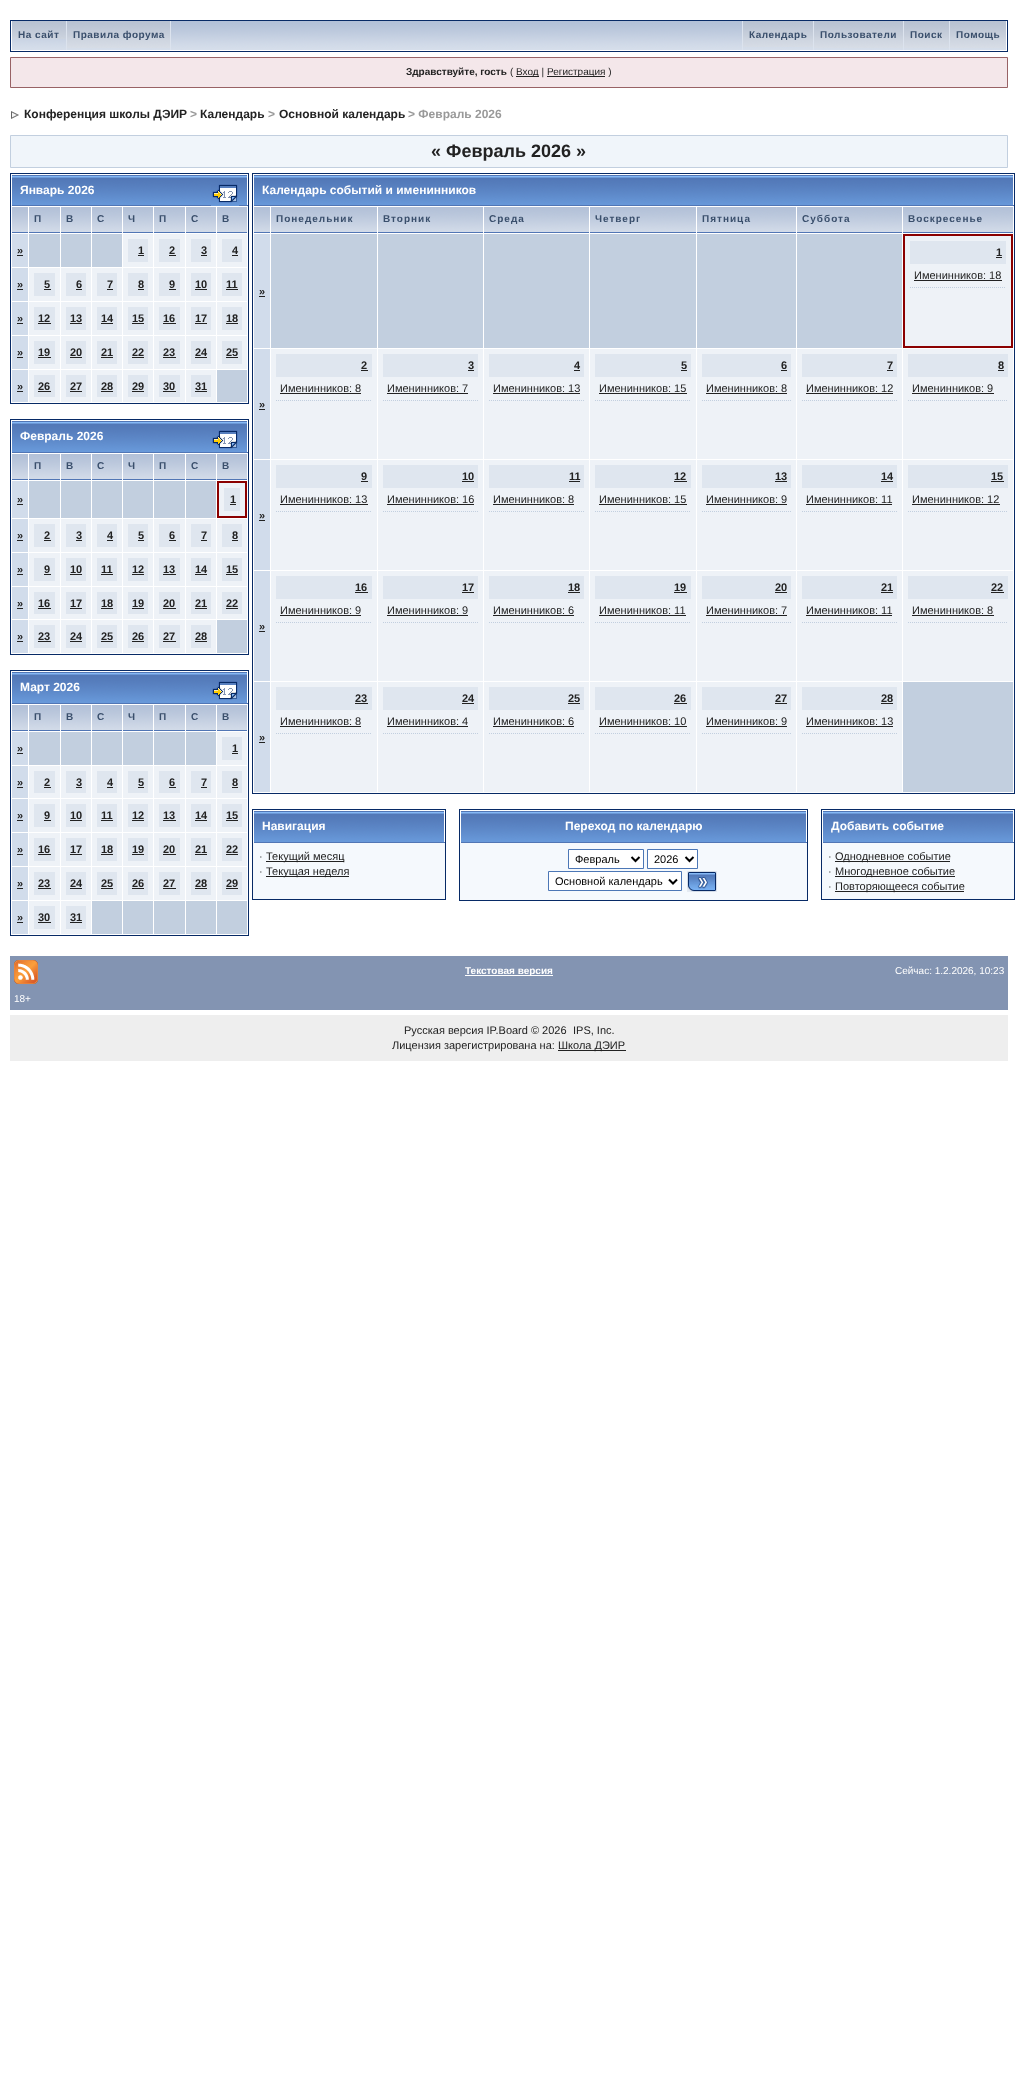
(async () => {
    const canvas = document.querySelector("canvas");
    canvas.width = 1018;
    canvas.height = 2087;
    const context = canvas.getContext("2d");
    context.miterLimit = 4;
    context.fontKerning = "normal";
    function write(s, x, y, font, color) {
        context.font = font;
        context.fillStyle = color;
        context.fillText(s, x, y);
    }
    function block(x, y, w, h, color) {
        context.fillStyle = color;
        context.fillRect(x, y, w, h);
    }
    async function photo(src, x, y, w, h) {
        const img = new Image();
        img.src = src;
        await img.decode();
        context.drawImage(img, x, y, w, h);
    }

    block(0, 0, 1018, 2087, "rgb(255, 255, 255)");
    context.strokeStyle = "rgb(7, 42, 102)";
    context.strokeRect(10.5, 20.5, 997, 31);
    await photo("media/1.png", 12, 21, 994, 29);
    await photo("media/2.png", 12, 21, 54, 18);
    block(66, 21, 1, 29, "rgb(220, 227, 238)");
    context.letterSpacing = "0.5px";
    write("На сайт", 18, 38, "bold 10px Liberation Sans", "rgb(58, 79, 108)");
    await photo("media/3.png", 67, 21, 103, 27);
    block(170, 21, 1, 29, "rgb(220, 227, 238)");
    write("Правила форума", 73, 38, "bold 10px Liberation Sans", "rgb(58, 79, 108)");
    await photo("media/4.png", 743, 21, 70, 26);
    block(742, 21, 1, 29, "rgb(220, 227, 238)");
    write("Календарь", 749, 38, "bold 10px Liberation Sans", "rgb(58, 79, 108)");
    await photo("media/5.png", 814, 21, 89, 27);
    block(813, 21, 1, 29, "rgb(220, 227, 238)");
    write("Пользователи", 820, 38, "bold 10px Liberation Sans", "rgb(58, 79, 108)");
    await photo("media/6.png", 904, 21, 45, 27);
    block(903, 21, 1, 29, "rgb(220, 227, 238)");
    write("Поиск", 910, 38, "bold 10px Liberation Sans", "rgb(58, 79, 108)");
    await photo("media/7.png", 950, 21, 56, 27);
    block(949, 21, 1, 29, "rgb(220, 227, 238)");
    write("Помощь", 956, 38, "bold 10px Liberation Sans", "rgb(58, 79, 108)");
    context.fillStyle = "rgb(244, 231, 234)";
    context.beginPath();
    context.rect(10.5, 57.5, 997, 30);
    context.fill();
    context.strokeStyle = "rgb(152, 98, 101)";
    context.stroke();
    context.letterSpacing = "0px";
    write("Здравствуйте, гость", 406, 75, "bold 10px Liberation Sans", "rgb(34, 34, 34)");
    write("(", 510, 75, "10px Liberation Sans", "rgb(34, 34, 34)");
    block(516, 76, 23, 1, "rgb(34, 34, 34)");
    write("Вход |", 516, 75, "10px Liberation Sans", "rgb(34, 34, 34)");
    block(547, 76, 58, 1, "rgb(34, 34, 34)");
    write("Регистрация )", 547, 75, "10px Liberation Sans", "rgb(34, 34, 34)");
    await photo("media/8.png", 11, 111, 8, 8);
    write("Конференция школы ДЭИР", 24, 118, "bold 12px Liberation Sans", "rgb(34, 34, 34)");
    write(">", 190, 118, "bold 12px Liberation Sans", "rgb(153, 153, 153)");
    write("Календарь", 200, 118, "bold 12px Liberation Sans", "rgb(34, 34, 34)");
    write(">", 268, 118, "bold 12px Liberation Sans", "rgb(153, 153, 153)");
    write("Основной календарь", 279, 118, "bold 12px Liberation Sans", "rgb(34, 34, 34)");
    write("> Февраль 2026", 408, 118, "bold 12px Liberation Sans", "rgb(153, 153, 153)");
    context.fillStyle = "rgb(240, 245, 250)";
    context.beginPath();
    context.rect(10.5, 135.5, 997, 32);
    context.fill();
    context.strokeStyle = "rgb(194, 207, 223)";
    context.stroke();
    write("« Февраль 2026 »", 431, 157, "bold 18px Liberation Sans", "rgb(34, 34, 34)");
    context.strokeStyle = "rgb(7, 42, 102)";
    context.strokeRect(10.5, 173.5, 238, 230);
    await photo("media/9.png", 12, 175, 235, 30);
    block(11, 205, 237, 1, "rgb(81, 118, 181)");
    block(11, 205, 1, 1, "rgb(255, 255, 255)");
    write("Январь 2026", 20, 194, "bold 12px Liberation Sans", "rgb(255, 255, 255)");
    await photo("media/10.png", 211, 184, 28, 22);
    await photo("media/11.png", 12, 207, 16, 25);
    block(12, 232, 16, 1, "rgb(81, 118, 181)");
    await photo("media/12.png", 29, 207, 31, 25);
    block(29, 232, 31, 1, "rgb(81, 118, 181)");
    context.letterSpacing = "1px";
    write("П", 34, 222, "bold 10px Liberation Sans", "rgb(58, 79, 108)");
    await photo("media/13.png", 61, 207, 30, 25);
    block(61, 232, 30, 1, "rgb(81, 118, 181)");
    write("В", 66, 222, "bold 10px Liberation Sans", "rgb(58, 79, 108)");
    await photo("media/13.png", 92, 207, 30, 25);
    block(92, 232, 30, 1, "rgb(81, 118, 181)");
    write("С", 97, 222, "bold 10px Liberation Sans", "rgb(58, 79, 108)");
    await photo("media/13.png", 123, 207, 30, 25);
    block(123, 232, 30, 1, "rgb(81, 118, 181)");
    write("Ч", 128, 222, "bold 10px Liberation Sans", "rgb(58, 79, 108)");
    await photo("media/12.png", 154, 207, 31, 25);
    block(154, 232, 31, 1, "rgb(81, 118, 181)");
    write("П", 159, 222, "bold 10px Liberation Sans", "rgb(58, 79, 108)");
    await photo("media/13.png", 186, 207, 30, 25);
    block(186, 232, 30, 1, "rgb(81, 118, 181)");
    write("С", 191, 222, "bold 10px Liberation Sans", "rgb(58, 79, 108)");
    await photo("media/13.png", 217, 207, 30, 25);
    block(217, 232, 30, 1, "rgb(81, 118, 181)");
    write("В", 222, 222, "bold 10px Liberation Sans", "rgb(58, 79, 108)");
    block(12, 234, 16, 33, "rgb(209, 220, 235)");
    context.letterSpacing = "0px";
    write("»", 17, 254, "bold 11px Liberation Sans", "rgb(34, 34, 34)");
    block(17, 255, 6, 1, "rgb(34, 34, 34)");
    block(29, 234, 31, 33, "rgb(194, 207, 223)");
    block(61, 234, 30, 33, "rgb(194, 207, 223)");
    block(92, 234, 30, 33, "rgb(194, 207, 223)");
    block(123, 234, 30, 33, "rgb(238, 242, 247)");
    block(128, 239, 20, 23, "rgb(223, 230, 239)");
    write("1", 138, 254, "bold 11px Liberation Sans", "rgb(34, 34, 34)");
    block(138, 255, 6, 1, "rgb(34, 34, 34)");
    block(154, 234, 31, 33, "rgb(238, 242, 247)");
    block(159, 239, 21, 23, "rgb(223, 230, 239)");
    write("2", 169, 254, "bold 11px Liberation Sans", "rgb(34, 34, 34)");
    block(169, 255, 7, 1, "rgb(34, 34, 34)");
    block(186, 234, 30, 33, "rgb(238, 242, 247)");
    block(191, 239, 20, 23, "rgb(223, 230, 239)");
    write("3", 201, 254, "bold 11px Liberation Sans", "rgb(34, 34, 34)");
    block(201, 255, 6, 1, "rgb(34, 34, 34)");
    block(217, 234, 30, 33, "rgb(238, 242, 247)");
    block(222, 239, 20, 23, "rgb(223, 230, 239)");
    write("4", 232, 254, "bold 11px Liberation Sans", "rgb(34, 34, 34)");
    block(232, 255, 6, 1, "rgb(34, 34, 34)");
    block(12, 268, 16, 33, "rgb(209, 220, 235)");
    write("»", 17, 288, "bold 11px Liberation Sans", "rgb(34, 34, 34)");
    block(17, 289, 6, 1, "rgb(34, 34, 34)");
    block(29, 268, 31, 33, "rgb(238, 242, 247)");
    block(34, 273, 21, 23, "rgb(223, 230, 239)");
    write("5", 44, 288, "bold 11px Liberation Sans", "rgb(34, 34, 34)");
    block(44, 289, 7, 1, "rgb(34, 34, 34)");
    block(61, 268, 30, 33, "rgb(238, 242, 247)");
    block(66, 273, 20, 23, "rgb(223, 230, 239)");
    write("6", 76, 288, "bold 11px Liberation Sans", "rgb(34, 34, 34)");
    block(76, 289, 6, 1, "rgb(34, 34, 34)");
    block(92, 268, 30, 33, "rgb(238, 242, 247)");
    block(97, 273, 20, 23, "rgb(223, 230, 239)");
    write("7", 107, 288, "bold 11px Liberation Sans", "rgb(34, 34, 34)");
    block(107, 289, 6, 1, "rgb(34, 34, 34)");
    block(123, 268, 30, 33, "rgb(238, 242, 247)");
    block(128, 273, 20, 23, "rgb(223, 230, 239)");
    write("8", 138, 288, "bold 11px Liberation Sans", "rgb(34, 34, 34)");
    block(138, 289, 6, 1, "rgb(34, 34, 34)");
    block(154, 268, 31, 33, "rgb(238, 242, 247)");
    block(159, 273, 21, 23, "rgb(223, 230, 239)");
    write("9", 169, 288, "bold 11px Liberation Sans", "rgb(34, 34, 34)");
    block(169, 289, 7, 1, "rgb(34, 34, 34)");
    block(186, 268, 30, 33, "rgb(238, 242, 247)");
    block(191, 273, 20, 23, "rgb(223, 230, 239)");
    write("10", 195, 288, "bold 11px Liberation Sans", "rgb(34, 34, 34)");
    block(195, 289, 12, 1, "rgb(34, 34, 34)");
    block(217, 268, 30, 33, "rgb(238, 242, 247)");
    block(222, 273, 20, 23, "rgb(223, 230, 239)");
    write("11", 226, 288, "bold 11px Liberation Sans", "rgb(34, 34, 34)");
    block(226, 289, 12, 1, "rgb(34, 34, 34)");
    block(12, 302, 16, 33, "rgb(209, 220, 235)");
    write("»", 17, 322, "bold 11px Liberation Sans", "rgb(34, 34, 34)");
    block(17, 323, 6, 1, "rgb(34, 34, 34)");
    block(29, 302, 31, 33, "rgb(238, 242, 247)");
    block(34, 307, 21, 23, "rgb(223, 230, 239)");
    write("12", 38, 322, "bold 11px Liberation Sans", "rgb(34, 34, 34)");
    block(38, 323, 13, 1, "rgb(34, 34, 34)");
    block(61, 302, 30, 33, "rgb(238, 242, 247)");
    block(66, 307, 20, 23, "rgb(223, 230, 239)");
    write("13", 70, 322, "bold 11px Liberation Sans", "rgb(34, 34, 34)");
    block(70, 323, 12, 1, "rgb(34, 34, 34)");
    block(92, 302, 30, 33, "rgb(238, 242, 247)");
    block(97, 307, 20, 23, "rgb(223, 230, 239)");
    write("14", 101, 322, "bold 11px Liberation Sans", "rgb(34, 34, 34)");
    block(101, 323, 12, 1, "rgb(34, 34, 34)");
    block(123, 302, 30, 33, "rgb(238, 242, 247)");
    block(128, 307, 20, 23, "rgb(223, 230, 239)");
    write("15", 132, 322, "bold 11px Liberation Sans", "rgb(34, 34, 34)");
    block(132, 323, 12, 1, "rgb(34, 34, 34)");
    block(154, 302, 31, 33, "rgb(238, 242, 247)");
    block(159, 307, 21, 23, "rgb(223, 230, 239)");
    write("16", 163, 322, "bold 11px Liberation Sans", "rgb(34, 34, 34)");
    block(163, 323, 13, 1, "rgb(34, 34, 34)");
    block(186, 302, 30, 33, "rgb(238, 242, 247)");
    block(191, 307, 20, 23, "rgb(223, 230, 239)");
    write("17", 195, 322, "bold 11px Liberation Sans", "rgb(34, 34, 34)");
    block(195, 323, 12, 1, "rgb(34, 34, 34)");
    block(217, 302, 30, 33, "rgb(238, 242, 247)");
    block(222, 307, 20, 23, "rgb(223, 230, 239)");
    write("18", 226, 322, "bold 11px Liberation Sans", "rgb(34, 34, 34)");
    block(226, 323, 12, 1, "rgb(34, 34, 34)");
    block(12, 336, 16, 33, "rgb(209, 220, 235)");
    write("»", 17, 356, "bold 11px Liberation Sans", "rgb(34, 34, 34)");
    block(17, 357, 6, 1, "rgb(34, 34, 34)");
    block(29, 336, 31, 33, "rgb(238, 242, 247)");
    block(34, 341, 21, 23, "rgb(223, 230, 239)");
    write("19", 38, 356, "bold 11px Liberation Sans", "rgb(34, 34, 34)");
    block(38, 357, 13, 1, "rgb(34, 34, 34)");
    block(61, 336, 30, 33, "rgb(238, 242, 247)");
    block(66, 341, 20, 23, "rgb(223, 230, 239)");
    write("20", 70, 356, "bold 11px Liberation Sans", "rgb(34, 34, 34)");
    block(70, 357, 12, 1, "rgb(34, 34, 34)");
    block(92, 336, 30, 33, "rgb(238, 242, 247)");
    block(97, 341, 20, 23, "rgb(223, 230, 239)");
    write("21", 101, 356, "bold 11px Liberation Sans", "rgb(34, 34, 34)");
    block(101, 357, 12, 1, "rgb(34, 34, 34)");
    block(123, 336, 30, 33, "rgb(238, 242, 247)");
    block(128, 341, 20, 23, "rgb(223, 230, 239)");
    write("22", 132, 356, "bold 11px Liberation Sans", "rgb(34, 34, 34)");
    block(132, 357, 12, 1, "rgb(34, 34, 34)");
    block(154, 336, 31, 33, "rgb(238, 242, 247)");
    block(159, 341, 21, 23, "rgb(223, 230, 239)");
    write("23", 163, 356, "bold 11px Liberation Sans", "rgb(34, 34, 34)");
    block(163, 357, 13, 1, "rgb(34, 34, 34)");
    block(186, 336, 30, 33, "rgb(238, 242, 247)");
    block(191, 341, 20, 23, "rgb(223, 230, 239)");
    write("24", 195, 356, "bold 11px Liberation Sans", "rgb(34, 34, 34)");
    block(195, 357, 12, 1, "rgb(34, 34, 34)");
    block(217, 336, 30, 33, "rgb(238, 242, 247)");
    block(222, 341, 20, 23, "rgb(223, 230, 239)");
    write("25", 226, 356, "bold 11px Liberation Sans", "rgb(34, 34, 34)");
    block(226, 357, 12, 1, "rgb(34, 34, 34)");
    block(12, 370, 16, 32, "rgb(209, 220, 235)");
    write("»", 17, 390, "bold 11px Liberation Sans", "rgb(34, 34, 34)");
    block(17, 391, 6, 1, "rgb(34, 34, 34)");
    block(29, 370, 31, 32, "rgb(238, 242, 247)");
    block(34, 375, 21, 22, "rgb(223, 230, 239)");
    write("26", 38, 390, "bold 11px Liberation Sans", "rgb(34, 34, 34)");
    block(38, 391, 13, 1, "rgb(34, 34, 34)");
    block(61, 370, 30, 32, "rgb(238, 242, 247)");
    block(66, 375, 20, 22, "rgb(223, 230, 239)");
    write("27", 70, 390, "bold 11px Liberation Sans", "rgb(34, 34, 34)");
    block(70, 391, 12, 1, "rgb(34, 34, 34)");
    block(92, 370, 30, 32, "rgb(238, 242, 247)");
    block(97, 375, 20, 22, "rgb(223, 230, 239)");
    write("28", 101, 390, "bold 11px Liberation Sans", "rgb(34, 34, 34)");
    block(101, 391, 12, 1, "rgb(34, 34, 34)");
    block(123, 370, 30, 32, "rgb(238, 242, 247)");
    block(128, 375, 20, 22, "rgb(223, 230, 239)");
    write("29", 132, 390, "bold 11px Liberation Sans", "rgb(34, 34, 34)");
    block(132, 391, 12, 1, "rgb(34, 34, 34)");
    block(154, 370, 31, 32, "rgb(238, 242, 247)");
    block(159, 375, 21, 22, "rgb(223, 230, 239)");
    write("30", 163, 390, "bold 11px Liberation Sans", "rgb(34, 34, 34)");
    block(163, 391, 13, 1, "rgb(34, 34, 34)");
    block(186, 370, 30, 32, "rgb(238, 242, 247)");
    block(191, 375, 20, 22, "rgb(223, 230, 239)");
    write("31", 195, 390, "bold 11px Liberation Sans", "rgb(34, 34, 34)");
    block(195, 391, 12, 1, "rgb(34, 34, 34)");
    block(217, 370, 30, 32, "rgb(194, 207, 223)");
    context.strokeRect(10.5, 419.5, 238, 235);
    await photo("media/14.png", 12, 421, 235, 31);
    block(11, 452, 237, 1, "rgb(81, 118, 181)");
    block(11, 452, 1, 1, "rgb(255, 255, 255)");
    write("Февраль 2026", 20, 440, "bold 12px Liberation Sans", "rgb(255, 255, 255)");
    await photo("media/15.png", 212, 430, 26, 19);
    await photo("media/11.png", 12, 454, 16, 25);
    block(12, 479, 16, 1, "rgb(81, 118, 181)");
    await photo("media/12.png", 29, 454, 31, 25);
    block(29, 479, 31, 1, "rgb(81, 118, 181)");
    context.letterSpacing = "1px";
    write("П", 34, 469, "bold 10px Liberation Sans", "rgb(58, 79, 108)");
    await photo("media/13.png", 61, 454, 30, 25);
    block(61, 479, 30, 1, "rgb(81, 118, 181)");
    write("В", 66, 469, "bold 10px Liberation Sans", "rgb(58, 79, 108)");
    await photo("media/13.png", 92, 454, 30, 25);
    block(92, 479, 30, 1, "rgb(81, 118, 181)");
    write("С", 97, 469, "bold 10px Liberation Sans", "rgb(58, 79, 108)");
    await photo("media/13.png", 123, 454, 30, 25);
    block(123, 479, 30, 1, "rgb(81, 118, 181)");
    write("Ч", 128, 469, "bold 10px Liberation Sans", "rgb(58, 79, 108)");
    await photo("media/12.png", 154, 454, 31, 25);
    block(154, 479, 31, 1, "rgb(81, 118, 181)");
    write("П", 159, 469, "bold 10px Liberation Sans", "rgb(58, 79, 108)");
    await photo("media/13.png", 186, 454, 30, 25);
    block(186, 479, 30, 1, "rgb(81, 118, 181)");
    write("С", 191, 469, "bold 10px Liberation Sans", "rgb(58, 79, 108)");
    await photo("media/13.png", 217, 454, 30, 25);
    block(217, 479, 30, 1, "rgb(81, 118, 181)");
    write("В", 222, 469, "bold 10px Liberation Sans", "rgb(58, 79, 108)");
    block(12, 481, 16, 37, "rgb(209, 220, 235)");
    context.letterSpacing = "0px";
    write("»", 17, 503, "bold 11px Liberation Sans", "rgb(34, 34, 34)");
    block(17, 504, 6, 1, "rgb(34, 34, 34)");
    block(29, 481, 31, 37, "rgb(194, 207, 223)");
    block(61, 481, 30, 37, "rgb(194, 207, 223)");
    block(92, 481, 30, 37, "rgb(194, 207, 223)");
    block(123, 481, 30, 37, "rgb(194, 207, 223)");
    block(154, 481, 31, 37, "rgb(194, 207, 223)");
    block(186, 481, 30, 37, "rgb(194, 207, 223)");
    context.fillStyle = "rgb(238, 242, 247)";
    context.beginPath();
    context.rect(218, 482, 28, 35);
    context.fill();
    context.strokeStyle = "rgb(139, 0, 0)";
    context.lineWidth = 2;
    context.stroke();
    block(224, 488, 16, 23, "rgb(223, 230, 239)");
    write("1", 230, 503, "bold 11px Liberation Sans", "rgb(34, 34, 34)");
    block(230, 504, 6, 1, "rgb(34, 34, 34)");
    block(12, 519, 16, 33, "rgb(209, 220, 235)");
    write("»", 17, 539, "bold 11px Liberation Sans", "rgb(34, 34, 34)");
    block(17, 540, 6, 1, "rgb(34, 34, 34)");
    block(29, 519, 31, 33, "rgb(238, 242, 247)");
    block(34, 524, 21, 23, "rgb(223, 230, 239)");
    write("2", 44, 539, "bold 11px Liberation Sans", "rgb(34, 34, 34)");
    block(44, 540, 7, 1, "rgb(34, 34, 34)");
    block(61, 519, 30, 33, "rgb(238, 242, 247)");
    block(66, 524, 20, 23, "rgb(223, 230, 239)");
    write("3", 76, 539, "bold 11px Liberation Sans", "rgb(34, 34, 34)");
    block(76, 540, 6, 1, "rgb(34, 34, 34)");
    block(92, 519, 30, 33, "rgb(238, 242, 247)");
    block(97, 524, 20, 23, "rgb(223, 230, 239)");
    write("4", 107, 539, "bold 11px Liberation Sans", "rgb(34, 34, 34)");
    block(107, 540, 6, 1, "rgb(34, 34, 34)");
    block(123, 519, 30, 33, "rgb(238, 242, 247)");
    block(128, 524, 20, 23, "rgb(223, 230, 239)");
    write("5", 138, 539, "bold 11px Liberation Sans", "rgb(34, 34, 34)");
    block(138, 540, 6, 1, "rgb(34, 34, 34)");
    block(154, 519, 31, 33, "rgb(238, 242, 247)");
    block(159, 524, 21, 23, "rgb(223, 230, 239)");
    write("6", 169, 539, "bold 11px Liberation Sans", "rgb(34, 34, 34)");
    block(169, 540, 7, 1, "rgb(34, 34, 34)");
    block(186, 519, 30, 33, "rgb(238, 242, 247)");
    block(191, 524, 20, 23, "rgb(223, 230, 239)");
    write("7", 201, 539, "bold 11px Liberation Sans", "rgb(34, 34, 34)");
    block(201, 540, 6, 1, "rgb(34, 34, 34)");
    block(217, 519, 30, 33, "rgb(238, 242, 247)");
    block(222, 524, 20, 23, "rgb(223, 230, 239)");
    write("8", 232, 539, "bold 11px Liberation Sans", "rgb(34, 34, 34)");
    block(232, 540, 6, 1, "rgb(34, 34, 34)");
    block(12, 553, 16, 33, "rgb(209, 220, 235)");
    write("»", 17, 573, "bold 11px Liberation Sans", "rgb(34, 34, 34)");
    block(17, 574, 6, 1, "rgb(34, 34, 34)");
    block(29, 553, 31, 33, "rgb(238, 242, 247)");
    block(34, 558, 21, 23, "rgb(223, 230, 239)");
    write("9", 44, 573, "bold 11px Liberation Sans", "rgb(34, 34, 34)");
    block(44, 574, 7, 1, "rgb(34, 34, 34)");
    block(61, 553, 30, 33, "rgb(238, 242, 247)");
    block(66, 558, 20, 23, "rgb(223, 230, 239)");
    write("10", 70, 573, "bold 11px Liberation Sans", "rgb(34, 34, 34)");
    block(70, 574, 12, 1, "rgb(34, 34, 34)");
    block(92, 553, 30, 33, "rgb(238, 242, 247)");
    block(97, 558, 20, 23, "rgb(223, 230, 239)");
    write("11", 101, 573, "bold 11px Liberation Sans", "rgb(34, 34, 34)");
    block(101, 574, 12, 1, "rgb(34, 34, 34)");
    block(123, 553, 30, 33, "rgb(238, 242, 247)");
    block(128, 558, 20, 23, "rgb(223, 230, 239)");
    write("12", 132, 573, "bold 11px Liberation Sans", "rgb(34, 34, 34)");
    block(132, 574, 12, 1, "rgb(34, 34, 34)");
    block(154, 553, 31, 33, "rgb(238, 242, 247)");
    block(159, 558, 21, 23, "rgb(223, 230, 239)");
    write("13", 163, 573, "bold 11px Liberation Sans", "rgb(34, 34, 34)");
    block(163, 574, 13, 1, "rgb(34, 34, 34)");
    block(186, 553, 30, 33, "rgb(238, 242, 247)");
    block(191, 558, 20, 23, "rgb(223, 230, 239)");
    write("14", 195, 573, "bold 11px Liberation Sans", "rgb(34, 34, 34)");
    block(195, 574, 12, 1, "rgb(34, 34, 34)");
    block(217, 553, 30, 33, "rgb(238, 242, 247)");
    block(222, 558, 20, 23, "rgb(223, 230, 239)");
    write("15", 226, 573, "bold 11px Liberation Sans", "rgb(34, 34, 34)");
    block(226, 574, 12, 1, "rgb(34, 34, 34)");
    block(12, 587, 16, 32, "rgb(209, 220, 235)");
    write("»", 17, 607, "bold 11px Liberation Sans", "rgb(34, 34, 34)");
    block(17, 608, 6, 1, "rgb(34, 34, 34)");
    block(29, 587, 31, 32, "rgb(238, 242, 247)");
    block(34, 592, 21, 22, "rgb(223, 230, 239)");
    write("16", 38, 607, "bold 11px Liberation Sans", "rgb(34, 34, 34)");
    block(38, 608, 13, 1, "rgb(34, 34, 34)");
    block(61, 587, 30, 32, "rgb(238, 242, 247)");
    block(66, 592, 20, 22, "rgb(223, 230, 239)");
    write("17", 70, 607, "bold 11px Liberation Sans", "rgb(34, 34, 34)");
    block(70, 608, 12, 1, "rgb(34, 34, 34)");
    block(92, 587, 30, 32, "rgb(238, 242, 247)");
    block(97, 592, 20, 22, "rgb(223, 230, 239)");
    write("18", 101, 607, "bold 11px Liberation Sans", "rgb(34, 34, 34)");
    block(101, 608, 12, 1, "rgb(34, 34, 34)");
    block(123, 587, 30, 32, "rgb(238, 242, 247)");
    block(128, 592, 20, 22, "rgb(223, 230, 239)");
    write("19", 132, 607, "bold 11px Liberation Sans", "rgb(34, 34, 34)");
    block(132, 608, 12, 1, "rgb(34, 34, 34)");
    block(154, 587, 31, 32, "rgb(238, 242, 247)");
    block(159, 592, 21, 22, "rgb(223, 230, 239)");
    write("20", 163, 607, "bold 11px Liberation Sans", "rgb(34, 34, 34)");
    block(163, 608, 13, 1, "rgb(34, 34, 34)");
    block(186, 587, 30, 32, "rgb(238, 242, 247)");
    block(191, 592, 20, 22, "rgb(223, 230, 239)");
    write("21", 195, 607, "bold 11px Liberation Sans", "rgb(34, 34, 34)");
    block(195, 608, 12, 1, "rgb(34, 34, 34)");
    block(217, 587, 30, 32, "rgb(238, 242, 247)");
    block(222, 592, 20, 22, "rgb(223, 230, 239)");
    write("22", 226, 607, "bold 11px Liberation Sans", "rgb(34, 34, 34)");
    block(226, 608, 12, 1, "rgb(34, 34, 34)");
    block(12, 620, 16, 33, "rgb(209, 220, 235)");
    write("»", 17, 640, "bold 11px Liberation Sans", "rgb(34, 34, 34)");
    block(17, 641, 6, 1, "rgb(34, 34, 34)");
    block(29, 620, 31, 33, "rgb(238, 242, 247)");
    block(34, 625, 21, 23, "rgb(223, 230, 239)");
    write("23", 38, 640, "bold 11px Liberation Sans", "rgb(34, 34, 34)");
    block(38, 641, 13, 1, "rgb(34, 34, 34)");
    block(61, 620, 30, 33, "rgb(238, 242, 247)");
    block(66, 625, 20, 23, "rgb(223, 230, 239)");
    write("24", 70, 640, "bold 11px Liberation Sans", "rgb(34, 34, 34)");
    block(70, 641, 12, 1, "rgb(34, 34, 34)");
    block(92, 620, 30, 33, "rgb(238, 242, 247)");
    block(97, 625, 20, 23, "rgb(223, 230, 239)");
    write("25", 101, 640, "bold 11px Liberation Sans", "rgb(34, 34, 34)");
    block(101, 641, 12, 1, "rgb(34, 34, 34)");
    block(123, 620, 30, 33, "rgb(238, 242, 247)");
    block(128, 625, 20, 23, "rgb(223, 230, 239)");
    write("26", 132, 640, "bold 11px Liberation Sans", "rgb(34, 34, 34)");
    block(132, 641, 12, 1, "rgb(34, 34, 34)");
    block(154, 620, 31, 33, "rgb(238, 242, 247)");
    block(159, 625, 21, 23, "rgb(223, 230, 239)");
    write("27", 163, 640, "bold 11px Liberation Sans", "rgb(34, 34, 34)");
    block(163, 641, 13, 1, "rgb(34, 34, 34)");
    block(186, 620, 30, 33, "rgb(238, 242, 247)");
    block(191, 625, 20, 23, "rgb(223, 230, 239)");
    write("28", 195, 640, "bold 11px Liberation Sans", "rgb(34, 34, 34)");
    block(195, 641, 12, 1, "rgb(34, 34, 34)");
    block(217, 620, 30, 33, "rgb(194, 207, 223)");
    context.strokeStyle = "rgb(7, 42, 102)";
    context.lineWidth = 1;
    context.strokeRect(10.5, 670.5, 238, 265);
    await photo("media/14.png", 12, 672, 235, 31);
    block(11, 703, 237, 1, "rgb(81, 118, 181)");
    block(11, 703, 1, 1, "rgb(255, 255, 255)");
    write("Март 2026", 20, 691, "bold 12px Liberation Sans", "rgb(255, 255, 255)");
    await photo("media/15.png", 212, 681, 26, 19);
    await photo("media/11.png", 12, 705, 16, 25);
    block(12, 730, 16, 1, "rgb(81, 118, 181)");
    await photo("media/12.png", 29, 705, 31, 25);
    block(29, 730, 31, 1, "rgb(81, 118, 181)");
    context.letterSpacing = "1px";
    write("П", 34, 720, "bold 10px Liberation Sans", "rgb(58, 79, 108)");
    await photo("media/13.png", 61, 705, 30, 25);
    block(61, 730, 30, 1, "rgb(81, 118, 181)");
    write("В", 66, 720, "bold 10px Liberation Sans", "rgb(58, 79, 108)");
    await photo("media/13.png", 92, 705, 30, 25);
    block(92, 730, 30, 1, "rgb(81, 118, 181)");
    write("С", 97, 720, "bold 10px Liberation Sans", "rgb(58, 79, 108)");
    await photo("media/13.png", 123, 705, 30, 25);
    block(123, 730, 30, 1, "rgb(81, 118, 181)");
    write("Ч", 128, 720, "bold 10px Liberation Sans", "rgb(58, 79, 108)");
    await photo("media/12.png", 154, 705, 31, 25);
    block(154, 730, 31, 1, "rgb(81, 118, 181)");
    write("П", 159, 720, "bold 10px Liberation Sans", "rgb(58, 79, 108)");
    await photo("media/13.png", 186, 705, 30, 25);
    block(186, 730, 30, 1, "rgb(81, 118, 181)");
    write("С", 191, 720, "bold 10px Liberation Sans", "rgb(58, 79, 108)");
    await photo("media/13.png", 217, 705, 30, 25);
    block(217, 730, 30, 1, "rgb(81, 118, 181)");
    write("В", 222, 720, "bold 10px Liberation Sans", "rgb(58, 79, 108)");
    block(12, 732, 16, 33, "rgb(209, 220, 235)");
    context.letterSpacing = "0px";
    write("»", 17, 752, "bold 11px Liberation Sans", "rgb(34, 34, 34)");
    block(17, 753, 6, 1, "rgb(34, 34, 34)");
    block(29, 732, 31, 33, "rgb(194, 207, 223)");
    block(61, 732, 30, 33, "rgb(194, 207, 223)");
    block(92, 732, 30, 33, "rgb(194, 207, 223)");
    block(123, 732, 30, 33, "rgb(194, 207, 223)");
    block(154, 732, 31, 33, "rgb(194, 207, 223)");
    block(186, 732, 30, 33, "rgb(194, 207, 223)");
    block(217, 732, 30, 33, "rgb(238, 242, 247)");
    block(222, 737, 20, 23, "rgb(223, 230, 239)");
    write("1", 232, 752, "bold 11px Liberation Sans", "rgb(34, 34, 34)");
    block(232, 753, 6, 1, "rgb(34, 34, 34)");
    block(12, 766, 16, 32, "rgb(209, 220, 235)");
    write("»", 17, 786, "bold 11px Liberation Sans", "rgb(34, 34, 34)");
    block(17, 787, 6, 1, "rgb(34, 34, 34)");
    block(29, 766, 31, 32, "rgb(238, 242, 247)");
    block(34, 771, 21, 22, "rgb(223, 230, 239)");
    write("2", 44, 786, "bold 11px Liberation Sans", "rgb(34, 34, 34)");
    block(44, 787, 7, 1, "rgb(34, 34, 34)");
    block(61, 766, 30, 32, "rgb(238, 242, 247)");
    block(66, 771, 20, 22, "rgb(223, 230, 239)");
    write("3", 76, 786, "bold 11px Liberation Sans", "rgb(34, 34, 34)");
    block(76, 787, 6, 1, "rgb(34, 34, 34)");
    block(92, 766, 30, 32, "rgb(238, 242, 247)");
    block(97, 771, 20, 22, "rgb(223, 230, 239)");
    write("4", 107, 786, "bold 11px Liberation Sans", "rgb(34, 34, 34)");
    block(107, 787, 6, 1, "rgb(34, 34, 34)");
    block(123, 766, 30, 32, "rgb(238, 242, 247)");
    block(128, 771, 20, 22, "rgb(223, 230, 239)");
    write("5", 138, 786, "bold 11px Liberation Sans", "rgb(34, 34, 34)");
    block(138, 787, 6, 1, "rgb(34, 34, 34)");
    block(154, 766, 31, 32, "rgb(238, 242, 247)");
    block(159, 771, 21, 22, "rgb(223, 230, 239)");
    write("6", 169, 786, "bold 11px Liberation Sans", "rgb(34, 34, 34)");
    block(169, 787, 7, 1, "rgb(34, 34, 34)");
    block(186, 766, 30, 32, "rgb(238, 242, 247)");
    block(191, 771, 20, 22, "rgb(223, 230, 239)");
    write("7", 201, 786, "bold 11px Liberation Sans", "rgb(34, 34, 34)");
    block(201, 787, 6, 1, "rgb(34, 34, 34)");
    block(217, 766, 30, 32, "rgb(238, 242, 247)");
    block(222, 771, 20, 22, "rgb(223, 230, 239)");
    write("8", 232, 786, "bold 11px Liberation Sans", "rgb(34, 34, 34)");
    block(232, 787, 6, 1, "rgb(34, 34, 34)");
    block(12, 799, 16, 33, "rgb(209, 220, 235)");
    write("»", 17, 819, "bold 11px Liberation Sans", "rgb(34, 34, 34)");
    block(17, 820, 6, 1, "rgb(34, 34, 34)");
    block(29, 799, 31, 33, "rgb(238, 242, 247)");
    block(34, 804, 21, 23, "rgb(223, 230, 239)");
    write("9", 44, 819, "bold 11px Liberation Sans", "rgb(34, 34, 34)");
    block(44, 820, 7, 1, "rgb(34, 34, 34)");
    block(61, 799, 30, 33, "rgb(238, 242, 247)");
    block(66, 804, 20, 23, "rgb(223, 230, 239)");
    write("10", 70, 819, "bold 11px Liberation Sans", "rgb(34, 34, 34)");
    block(70, 820, 12, 1, "rgb(34, 34, 34)");
    block(92, 799, 30, 33, "rgb(238, 242, 247)");
    block(97, 804, 20, 23, "rgb(223, 230, 239)");
    write("11", 101, 819, "bold 11px Liberation Sans", "rgb(34, 34, 34)");
    block(101, 820, 12, 1, "rgb(34, 34, 34)");
    block(123, 799, 30, 33, "rgb(238, 242, 247)");
    block(128, 804, 20, 23, "rgb(223, 230, 239)");
    write("12", 132, 819, "bold 11px Liberation Sans", "rgb(34, 34, 34)");
    block(132, 820, 12, 1, "rgb(34, 34, 34)");
    block(154, 799, 31, 33, "rgb(238, 242, 247)");
    block(159, 804, 21, 23, "rgb(223, 230, 239)");
    write("13", 163, 819, "bold 11px Liberation Sans", "rgb(34, 34, 34)");
    block(163, 820, 13, 1, "rgb(34, 34, 34)");
    block(186, 799, 30, 33, "rgb(238, 242, 247)");
    block(191, 804, 20, 23, "rgb(223, 230, 239)");
    write("14", 195, 819, "bold 11px Liberation Sans", "rgb(34, 34, 34)");
    block(195, 820, 12, 1, "rgb(34, 34, 34)");
    block(217, 799, 30, 33, "rgb(238, 242, 247)");
    block(222, 804, 20, 23, "rgb(223, 230, 239)");
    write("15", 226, 819, "bold 11px Liberation Sans", "rgb(34, 34, 34)");
    block(226, 820, 12, 1, "rgb(34, 34, 34)");
    block(12, 833, 16, 33, "rgb(209, 220, 235)");
    write("»", 17, 853, "bold 11px Liberation Sans", "rgb(34, 34, 34)");
    block(17, 854, 6, 1, "rgb(34, 34, 34)");
    block(29, 833, 31, 33, "rgb(238, 242, 247)");
    block(34, 838, 21, 23, "rgb(223, 230, 239)");
    write("16", 38, 853, "bold 11px Liberation Sans", "rgb(34, 34, 34)");
    block(38, 854, 13, 1, "rgb(34, 34, 34)");
    block(61, 833, 30, 33, "rgb(238, 242, 247)");
    block(66, 838, 20, 23, "rgb(223, 230, 239)");
    write("17", 70, 853, "bold 11px Liberation Sans", "rgb(34, 34, 34)");
    block(70, 854, 12, 1, "rgb(34, 34, 34)");
    block(92, 833, 30, 33, "rgb(238, 242, 247)");
    block(97, 838, 20, 23, "rgb(223, 230, 239)");
    write("18", 101, 853, "bold 11px Liberation Sans", "rgb(34, 34, 34)");
    block(101, 854, 12, 1, "rgb(34, 34, 34)");
    block(123, 833, 30, 33, "rgb(238, 242, 247)");
    block(128, 838, 20, 23, "rgb(223, 230, 239)");
    write("19", 132, 853, "bold 11px Liberation Sans", "rgb(34, 34, 34)");
    block(132, 854, 12, 1, "rgb(34, 34, 34)");
    block(154, 833, 31, 33, "rgb(238, 242, 247)");
    block(159, 838, 21, 23, "rgb(223, 230, 239)");
    write("20", 163, 853, "bold 11px Liberation Sans", "rgb(34, 34, 34)");
    block(163, 854, 13, 1, "rgb(34, 34, 34)");
    block(186, 833, 30, 33, "rgb(238, 242, 247)");
    block(191, 838, 20, 23, "rgb(223, 230, 239)");
    write("21", 195, 853, "bold 11px Liberation Sans", "rgb(34, 34, 34)");
    block(195, 854, 12, 1, "rgb(34, 34, 34)");
    block(217, 833, 30, 33, "rgb(238, 242, 247)");
    block(222, 838, 20, 23, "rgb(223, 230, 239)");
    write("22", 226, 853, "bold 11px Liberation Sans", "rgb(34, 34, 34)");
    block(226, 854, 12, 1, "rgb(34, 34, 34)");
    block(12, 867, 16, 33, "rgb(209, 220, 235)");
    write("»", 17, 887, "bold 11px Liberation Sans", "rgb(34, 34, 34)");
    block(17, 888, 6, 1, "rgb(34, 34, 34)");
    block(29, 867, 31, 33, "rgb(238, 242, 247)");
    block(34, 872, 21, 23, "rgb(223, 230, 239)");
    write("23", 38, 887, "bold 11px Liberation Sans", "rgb(34, 34, 34)");
    block(38, 888, 13, 1, "rgb(34, 34, 34)");
    block(61, 867, 30, 33, "rgb(238, 242, 247)");
    block(66, 872, 20, 23, "rgb(223, 230, 239)");
    write("24", 70, 887, "bold 11px Liberation Sans", "rgb(34, 34, 34)");
    block(70, 888, 12, 1, "rgb(34, 34, 34)");
    block(92, 867, 30, 33, "rgb(238, 242, 247)");
    block(97, 872, 20, 23, "rgb(223, 230, 239)");
    write("25", 101, 887, "bold 11px Liberation Sans", "rgb(34, 34, 34)");
    block(101, 888, 12, 1, "rgb(34, 34, 34)");
    block(123, 867, 30, 33, "rgb(238, 242, 247)");
    block(128, 872, 20, 23, "rgb(223, 230, 239)");
    write("26", 132, 887, "bold 11px Liberation Sans", "rgb(34, 34, 34)");
    block(132, 888, 12, 1, "rgb(34, 34, 34)");
    block(154, 867, 31, 33, "rgb(238, 242, 247)");
    block(159, 872, 21, 23, "rgb(223, 230, 239)");
    write("27", 163, 887, "bold 11px Liberation Sans", "rgb(34, 34, 34)");
    block(163, 888, 13, 1, "rgb(34, 34, 34)");
    block(186, 867, 30, 33, "rgb(238, 242, 247)");
    block(191, 872, 20, 23, "rgb(223, 230, 239)");
    write("28", 195, 887, "bold 11px Liberation Sans", "rgb(34, 34, 34)");
    block(195, 888, 12, 1, "rgb(34, 34, 34)");
    block(217, 867, 30, 33, "rgb(238, 242, 247)");
    block(222, 872, 20, 23, "rgb(223, 230, 239)");
    write("29", 226, 887, "bold 11px Liberation Sans", "rgb(34, 34, 34)");
    block(226, 888, 12, 1, "rgb(34, 34, 34)");
    block(12, 901, 16, 33, "rgb(209, 220, 235)");
    write("»", 17, 921, "bold 11px Liberation Sans", "rgb(34, 34, 34)");
    block(17, 922, 6, 1, "rgb(34, 34, 34)");
    block(29, 901, 31, 33, "rgb(238, 242, 247)");
    block(34, 906, 21, 23, "rgb(223, 230, 239)");
    write("30", 38, 921, "bold 11px Liberation Sans", "rgb(34, 34, 34)");
    block(38, 922, 13, 1, "rgb(34, 34, 34)");
    block(61, 901, 30, 33, "rgb(238, 242, 247)");
    block(66, 906, 20, 23, "rgb(223, 230, 239)");
    write("31", 70, 921, "bold 11px Liberation Sans", "rgb(34, 34, 34)");
    block(70, 922, 12, 1, "rgb(34, 34, 34)");
    block(92, 901, 30, 33, "rgb(194, 207, 223)");
    block(123, 901, 30, 33, "rgb(194, 207, 223)");
    block(154, 901, 31, 33, "rgb(194, 207, 223)");
    block(186, 901, 30, 33, "rgb(194, 207, 223)");
    block(217, 901, 30, 33, "rgb(194, 207, 223)");
    context.strokeRect(252.5, 173.5, 762, 620);
    await photo("media/16.png", 254, 175, 759, 30);
    block(253, 205, 761, 1, "rgb(81, 118, 181)");
    block(253, 205, 1, 1, "rgb(255, 255, 255)");
    write("Календарь событий и именинников", 262, 194, "bold 12px Liberation Sans", "rgb(255, 255, 255)");
    await photo("media/11.png", 254, 207, 16, 25);
    block(254, 232, 16, 1, "rgb(81, 118, 181)");
    await photo("media/17.png", 271, 207, 106, 25);
    block(271, 232, 106, 1, "rgb(81, 118, 181)");
    context.letterSpacing = "1px";
    write("Понедельник", 276, 222, "bold 10px Liberation Sans", "rgb(58, 79, 108)");
    await photo("media/18.png", 378, 207, 105, 25);
    block(378, 232, 105, 1, "rgb(81, 118, 181)");
    write("Вторник", 383, 222, "bold 10px Liberation Sans", "rgb(58, 79, 108)");
    await photo("media/18.png", 484, 207, 105, 25);
    block(484, 232, 105, 1, "rgb(81, 118, 181)");
    write("Среда", 489, 222, "bold 10px Liberation Sans", "rgb(58, 79, 108)");
    await photo("media/17.png", 590, 207, 106, 25);
    block(590, 232, 106, 1, "rgb(81, 118, 181)");
    write("Четверг", 595, 222, "bold 10px Liberation Sans", "rgb(58, 79, 108)");
    await photo("media/19.png", 697, 207, 99, 25);
    block(697, 232, 99, 1, "rgb(81, 118, 181)");
    write("Пятница", 702, 222, "bold 10px Liberation Sans", "rgb(58, 79, 108)");
    await photo("media/18.png", 797, 207, 105, 25);
    block(797, 232, 105, 1, "rgb(81, 118, 181)");
    write("Суббота", 802, 222, "bold 10px Liberation Sans", "rgb(58, 79, 108)");
    await photo("media/20.png", 903, 207, 110, 25);
    block(903, 232, 110, 1, "rgb(81, 118, 181)");
    write("Воскресенье", 908, 222, "bold 10px Liberation Sans", "rgb(58, 79, 108)");
    block(271, 234, 106, 114, "rgb(194, 207, 223)");
    block(378, 234, 105, 114, "rgb(194, 207, 223)");
    block(484, 234, 105, 114, "rgb(194, 207, 223)");
    block(590, 234, 106, 114, "rgb(194, 207, 223)");
    block(697, 234, 99, 114, "rgb(194, 207, 223)");
    block(797, 234, 105, 114, "rgb(194, 207, 223)");
    context.fillStyle = "rgb(238, 242, 247)";
    context.beginPath();
    context.rect(904, 235, 108, 112);
    context.fill();
    context.strokeStyle = "rgb(139, 0, 0)";
    context.lineWidth = 2;
    context.stroke();
    block(910, 241, 96, 23, "rgb(223, 230, 239)");
    context.letterSpacing = "0px";
    write("1", 996, 256, "bold 11px Liberation Sans", "rgb(34, 34, 34)");
    block(996, 257, 6, 1, "rgb(34, 34, 34)");
    context.beginPath();
    context.moveTo(910, 287.5);
    context.lineTo(1006, 287.5);
    context.strokeStyle = "rgb(194, 207, 223)";
    context.lineWidth = 1;
    context.setLineDash([1, 1]);
    context.stroke();
    write("Именинников: 18", 914, 279, "11px Liberation Sans", "rgb(34, 34, 34)");
    block(914, 280, 88, 1, "rgb(34, 34, 34)");
    block(254, 234, 16, 114, "rgb(209, 220, 235)");
    write("»", 259, 295, "bold 11px Liberation Sans", "rgb(34, 34, 34)");
    block(259, 296, 6, 1, "rgb(34, 34, 34)");
    block(271, 349, 106, 110, "rgb(238, 242, 247)");
    block(276, 354, 96, 23, "rgb(223, 230, 239)");
    write("2", 361, 369, "bold 11px Liberation Sans", "rgb(34, 34, 34)");
    block(361, 370, 7, 1, "rgb(34, 34, 34)");
    context.beginPath();
    context.moveTo(276, 400.5);
    context.lineTo(372, 400.5);
    context.stroke();
    write("Именинников: 8", 280, 392, "11px Liberation Sans", "rgb(34, 34, 34)");
    block(280, 393, 81, 1, "rgb(34, 34, 34)");
    block(378, 349, 105, 110, "rgb(238, 242, 247)");
    block(383, 354, 95, 23, "rgb(223, 230, 239)");
    write("3", 468, 369, "bold 11px Liberation Sans", "rgb(34, 34, 34)");
    block(468, 370, 6, 1, "rgb(34, 34, 34)");
    context.beginPath();
    context.moveTo(383, 400.5);
    context.lineTo(478, 400.5);
    context.stroke();
    write("Именинников: 7", 387, 392, "11px Liberation Sans", "rgb(34, 34, 34)");
    block(387, 393, 81, 1, "rgb(34, 34, 34)");
    block(484, 349, 105, 110, "rgb(238, 242, 247)");
    block(489, 354, 95, 23, "rgb(223, 230, 239)");
    write("4", 574, 369, "bold 11px Liberation Sans", "rgb(34, 34, 34)");
    block(574, 370, 6, 1, "rgb(34, 34, 34)");
    context.beginPath();
    context.moveTo(489, 400.5);
    context.lineTo(584, 400.5);
    context.stroke();
    write("Именинников: 13", 493, 392, "11px Liberation Sans", "rgb(34, 34, 34)");
    block(493, 393, 87, 1, "rgb(34, 34, 34)");
    block(590, 349, 106, 110, "rgb(238, 242, 247)");
    block(595, 354, 96, 23, "rgb(223, 230, 239)");
    write("5", 681, 369, "bold 11px Liberation Sans", "rgb(34, 34, 34)");
    block(681, 370, 6, 1, "rgb(34, 34, 34)");
    context.beginPath();
    context.moveTo(595, 400.5);
    context.lineTo(691, 400.5);
    context.stroke();
    write("Именинников: 15", 599, 392, "11px Liberation Sans", "rgb(34, 34, 34)");
    block(599, 393, 88, 1, "rgb(34, 34, 34)");
    block(697, 349, 99, 110, "rgb(238, 242, 247)");
    block(702, 354, 89, 23, "rgb(223, 230, 239)");
    write("6", 781, 369, "bold 11px Liberation Sans", "rgb(34, 34, 34)");
    block(781, 370, 6, 1, "rgb(34, 34, 34)");
    context.beginPath();
    context.moveTo(702, 400.5);
    context.lineTo(791, 400.5);
    context.stroke();
    write("Именинников: 8", 706, 392, "11px Liberation Sans", "rgb(34, 34, 34)");
    block(706, 393, 81, 1, "rgb(34, 34, 34)");
    block(797, 349, 105, 110, "rgb(238, 242, 247)");
    block(802, 354, 95, 23, "rgb(223, 230, 239)");
    write("7", 887, 369, "bold 11px Liberation Sans", "rgb(34, 34, 34)");
    block(887, 370, 6, 1, "rgb(34, 34, 34)");
    context.beginPath();
    context.moveTo(802, 400.5);
    context.lineTo(897, 400.5);
    context.stroke();
    write("Именинников: 12", 806, 392, "11px Liberation Sans", "rgb(34, 34, 34)");
    block(806, 393, 87, 1, "rgb(34, 34, 34)");
    block(903, 349, 110, 110, "rgb(238, 242, 247)");
    block(908, 354, 100, 23, "rgb(223, 230, 239)");
    write("8", 998, 369, "bold 11px Liberation Sans", "rgb(34, 34, 34)");
    block(998, 370, 6, 1, "rgb(34, 34, 34)");
    context.beginPath();
    context.moveTo(908, 400.5);
    context.lineTo(1008, 400.5);
    context.stroke();
    write("Именинников: 9", 912, 392, "11px Liberation Sans", "rgb(34, 34, 34)");
    block(912, 393, 82, 1, "rgb(34, 34, 34)");
    block(254, 349, 16, 110, "rgb(209, 220, 235)");
    write("»", 259, 408, "bold 11px Liberation Sans", "rgb(34, 34, 34)");
    block(259, 409, 6, 1, "rgb(34, 34, 34)");
    block(271, 460, 106, 110, "rgb(238, 242, 247)");
    block(276, 465, 96, 23, "rgb(223, 230, 239)");
    write("9", 361, 480, "bold 11px Liberation Sans", "rgb(34, 34, 34)");
    block(361, 481, 7, 1, "rgb(34, 34, 34)");
    context.beginPath();
    context.moveTo(276, 511.5);
    context.lineTo(372, 511.5);
    context.stroke();
    write("Именинников: 13", 280, 503, "11px Liberation Sans", "rgb(34, 34, 34)");
    block(280, 504, 88, 1, "rgb(34, 34, 34)");
    block(378, 460, 105, 110, "rgb(238, 242, 247)");
    block(383, 465, 95, 23, "rgb(223, 230, 239)");
    write("10", 462, 480, "bold 11px Liberation Sans", "rgb(34, 34, 34)");
    block(462, 481, 12, 1, "rgb(34, 34, 34)");
    context.beginPath();
    context.moveTo(383, 511.5);
    context.lineTo(478, 511.5);
    context.stroke();
    write("Именинников: 16", 387, 503, "11px Liberation Sans", "rgb(34, 34, 34)");
    block(387, 504, 87, 1, "rgb(34, 34, 34)");
    block(484, 460, 105, 110, "rgb(238, 242, 247)");
    block(489, 465, 95, 23, "rgb(223, 230, 239)");
    write("11", 569, 480, "bold 11px Liberation Sans", "rgb(34, 34, 34)");
    block(569, 481, 11, 1, "rgb(34, 34, 34)");
    context.beginPath();
    context.moveTo(489, 511.5);
    context.lineTo(584, 511.5);
    context.stroke();
    write("Именинников: 8", 493, 503, "11px Liberation Sans", "rgb(34, 34, 34)");
    block(493, 504, 81, 1, "rgb(34, 34, 34)");
    block(590, 460, 106, 110, "rgb(238, 242, 247)");
    block(595, 465, 96, 23, "rgb(223, 230, 239)");
    write("12", 674, 480, "bold 11px Liberation Sans", "rgb(34, 34, 34)");
    block(674, 481, 13, 1, "rgb(34, 34, 34)");
    context.beginPath();
    context.moveTo(595, 511.5);
    context.lineTo(691, 511.5);
    context.stroke();
    write("Именинников: 15", 599, 503, "11px Liberation Sans", "rgb(34, 34, 34)");
    block(599, 504, 88, 1, "rgb(34, 34, 34)");
    block(697, 460, 99, 110, "rgb(238, 242, 247)");
    block(702, 465, 89, 23, "rgb(223, 230, 239)");
    write("13", 775, 480, "bold 11px Liberation Sans", "rgb(34, 34, 34)");
    block(775, 481, 12, 1, "rgb(34, 34, 34)");
    context.beginPath();
    context.moveTo(702, 511.5);
    context.lineTo(791, 511.5);
    context.stroke();
    write("Именинников: 9", 706, 503, "11px Liberation Sans", "rgb(34, 34, 34)");
    block(706, 504, 81, 1, "rgb(34, 34, 34)");
    block(797, 460, 105, 110, "rgb(238, 242, 247)");
    block(802, 465, 95, 23, "rgb(223, 230, 239)");
    write("14", 881, 480, "bold 11px Liberation Sans", "rgb(34, 34, 34)");
    block(881, 481, 12, 1, "rgb(34, 34, 34)");
    context.beginPath();
    context.moveTo(802, 511.5);
    context.lineTo(897, 511.5);
    context.stroke();
    write("Именинников: 11", 806, 503, "11px Liberation Sans", "rgb(34, 34, 34)");
    block(806, 504, 86, 1, "rgb(34, 34, 34)");
    block(903, 460, 110, 110, "rgb(238, 242, 247)");
    block(908, 465, 100, 23, "rgb(223, 230, 239)");
    write("15", 991, 480, "bold 11px Liberation Sans", "rgb(34, 34, 34)");
    block(991, 481, 13, 1, "rgb(34, 34, 34)");
    context.beginPath();
    context.moveTo(908, 511.5);
    context.lineTo(1008, 511.5);
    context.stroke();
    write("Именинников: 12", 912, 503, "11px Liberation Sans", "rgb(34, 34, 34)");
    block(912, 504, 88, 1, "rgb(34, 34, 34)");
    block(254, 460, 16, 110, "rgb(209, 220, 235)");
    write("»", 259, 519, "bold 11px Liberation Sans", "rgb(34, 34, 34)");
    block(259, 520, 6, 1, "rgb(34, 34, 34)");
    block(271, 571, 106, 110, "rgb(238, 242, 247)");
    block(276, 576, 96, 23, "rgb(223, 230, 239)");
    write("16", 355, 591, "bold 11px Liberation Sans", "rgb(34, 34, 34)");
    block(355, 592, 13, 1, "rgb(34, 34, 34)");
    context.beginPath();
    context.moveTo(276, 622.5);
    context.lineTo(372, 622.5);
    context.stroke();
    write("Именинников: 9", 280, 614, "11px Liberation Sans", "rgb(34, 34, 34)");
    block(280, 615, 81, 1, "rgb(34, 34, 34)");
    block(378, 571, 105, 110, "rgb(238, 242, 247)");
    block(383, 576, 95, 23, "rgb(223, 230, 239)");
    write("17", 462, 591, "bold 11px Liberation Sans", "rgb(34, 34, 34)");
    block(462, 592, 12, 1, "rgb(34, 34, 34)");
    context.beginPath();
    context.moveTo(383, 622.5);
    context.lineTo(478, 622.5);
    context.stroke();
    write("Именинников: 9", 387, 614, "11px Liberation Sans", "rgb(34, 34, 34)");
    block(387, 615, 81, 1, "rgb(34, 34, 34)");
    block(484, 571, 105, 110, "rgb(238, 242, 247)");
    block(489, 576, 95, 23, "rgb(223, 230, 239)");
    write("18", 568, 591, "bold 11px Liberation Sans", "rgb(34, 34, 34)");
    block(568, 592, 12, 1, "rgb(34, 34, 34)");
    context.beginPath();
    context.moveTo(489, 622.5);
    context.lineTo(584, 622.5);
    context.stroke();
    write("Именинников: 6", 493, 614, "11px Liberation Sans", "rgb(34, 34, 34)");
    block(493, 615, 81, 1, "rgb(34, 34, 34)");
    block(590, 571, 106, 110, "rgb(238, 242, 247)");
    block(595, 576, 96, 23, "rgb(223, 230, 239)");
    write("19", 674, 591, "bold 11px Liberation Sans", "rgb(34, 34, 34)");
    block(674, 592, 13, 1, "rgb(34, 34, 34)");
    context.beginPath();
    context.moveTo(595, 622.5);
    context.lineTo(691, 622.5);
    context.stroke();
    write("Именинников: 11", 599, 614, "11px Liberation Sans", "rgb(34, 34, 34)");
    block(599, 615, 87, 1, "rgb(34, 34, 34)");
    block(697, 571, 99, 110, "rgb(238, 242, 247)");
    block(702, 576, 89, 23, "rgb(223, 230, 239)");
    write("20", 775, 591, "bold 11px Liberation Sans", "rgb(34, 34, 34)");
    block(775, 592, 12, 1, "rgb(34, 34, 34)");
    context.beginPath();
    context.moveTo(702, 622.5);
    context.lineTo(791, 622.5);
    context.stroke();
    write("Именинников: 7", 706, 614, "11px Liberation Sans", "rgb(34, 34, 34)");
    block(706, 615, 81, 1, "rgb(34, 34, 34)");
    block(797, 571, 105, 110, "rgb(238, 242, 247)");
    block(802, 576, 95, 23, "rgb(223, 230, 239)");
    write("21", 881, 591, "bold 11px Liberation Sans", "rgb(34, 34, 34)");
    block(881, 592, 12, 1, "rgb(34, 34, 34)");
    context.beginPath();
    context.moveTo(802, 622.5);
    context.lineTo(897, 622.5);
    context.stroke();
    write("Именинников: 11", 806, 614, "11px Liberation Sans", "rgb(34, 34, 34)");
    block(806, 615, 86, 1, "rgb(34, 34, 34)");
    block(903, 571, 110, 110, "rgb(238, 242, 247)");
    block(908, 576, 100, 23, "rgb(223, 230, 239)");
    write("22", 991, 591, "bold 11px Liberation Sans", "rgb(34, 34, 34)");
    block(991, 592, 13, 1, "rgb(34, 34, 34)");
    context.beginPath();
    context.moveTo(908, 622.5);
    context.lineTo(1008, 622.5);
    context.stroke();
    write("Именинников: 8", 912, 614, "11px Liberation Sans", "rgb(34, 34, 34)");
    block(912, 615, 82, 1, "rgb(34, 34, 34)");
    block(254, 571, 16, 110, "rgb(209, 220, 235)");
    write("»", 259, 630, "bold 11px Liberation Sans", "rgb(34, 34, 34)");
    block(259, 631, 6, 1, "rgb(34, 34, 34)");
    block(271, 682, 106, 110, "rgb(238, 242, 247)");
    block(276, 687, 96, 23, "rgb(223, 230, 239)");
    write("23", 355, 702, "bold 11px Liberation Sans", "rgb(34, 34, 34)");
    block(355, 703, 13, 1, "rgb(34, 34, 34)");
    context.beginPath();
    context.moveTo(276, 733.5);
    context.lineTo(372, 733.5);
    context.stroke();
    write("Именинников: 8", 280, 725, "11px Liberation Sans", "rgb(34, 34, 34)");
    block(280, 726, 81, 1, "rgb(34, 34, 34)");
    block(378, 682, 105, 110, "rgb(238, 242, 247)");
    block(383, 687, 95, 23, "rgb(223, 230, 239)");
    write("24", 462, 702, "bold 11px Liberation Sans", "rgb(34, 34, 34)");
    block(462, 703, 12, 1, "rgb(34, 34, 34)");
    context.beginPath();
    context.moveTo(383, 733.5);
    context.lineTo(478, 733.5);
    context.stroke();
    write("Именинников: 4", 387, 725, "11px Liberation Sans", "rgb(34, 34, 34)");
    block(387, 726, 81, 1, "rgb(34, 34, 34)");
    block(484, 682, 105, 110, "rgb(238, 242, 247)");
    block(489, 687, 95, 23, "rgb(223, 230, 239)");
    write("25", 568, 702, "bold 11px Liberation Sans", "rgb(34, 34, 34)");
    block(568, 703, 12, 1, "rgb(34, 34, 34)");
    context.beginPath();
    context.moveTo(489, 733.5);
    context.lineTo(584, 733.5);
    context.stroke();
    write("Именинников: 6", 493, 725, "11px Liberation Sans", "rgb(34, 34, 34)");
    block(493, 726, 81, 1, "rgb(34, 34, 34)");
    block(590, 682, 106, 110, "rgb(238, 242, 247)");
    block(595, 687, 96, 23, "rgb(223, 230, 239)");
    write("26", 674, 702, "bold 11px Liberation Sans", "rgb(34, 34, 34)");
    block(674, 703, 13, 1, "rgb(34, 34, 34)");
    context.beginPath();
    context.moveTo(595, 733.5);
    context.lineTo(691, 733.5);
    context.stroke();
    write("Именинников: 10", 599, 725, "11px Liberation Sans", "rgb(34, 34, 34)");
    block(599, 726, 88, 1, "rgb(34, 34, 34)");
    block(697, 682, 99, 110, "rgb(238, 242, 247)");
    block(702, 687, 89, 23, "rgb(223, 230, 239)");
    write("27", 775, 702, "bold 11px Liberation Sans", "rgb(34, 34, 34)");
    block(775, 703, 12, 1, "rgb(34, 34, 34)");
    context.beginPath();
    context.moveTo(702, 733.5);
    context.lineTo(791, 733.5);
    context.stroke();
    write("Именинников: 9", 706, 725, "11px Liberation Sans", "rgb(34, 34, 34)");
    block(706, 726, 81, 1, "rgb(34, 34, 34)");
    block(797, 682, 105, 110, "rgb(238, 242, 247)");
    block(802, 687, 95, 23, "rgb(223, 230, 239)");
    write("28", 881, 702, "bold 11px Liberation Sans", "rgb(34, 34, 34)");
    block(881, 703, 12, 1, "rgb(34, 34, 34)");
    context.beginPath();
    context.moveTo(802, 733.5);
    context.lineTo(897, 733.5);
    context.stroke();
    write("Именинников: 13", 806, 725, "11px Liberation Sans", "rgb(34, 34, 34)");
    block(806, 726, 87, 1, "rgb(34, 34, 34)");
    block(903, 682, 110, 110, "rgb(194, 207, 223)");
    block(254, 682, 16, 110, "rgb(209, 220, 235)");
    write("»", 259, 741, "bold 11px Liberation Sans", "rgb(34, 34, 34)");
    block(259, 742, 6, 1, "rgb(34, 34, 34)");
    context.strokeStyle = "rgb(7, 42, 102)";
    context.setLineDash([]);
    context.strokeRect(252.5, 809.5, 193, 90);
    await photo("media/21.png", 254, 811, 190, 31);
    block(253, 842, 192, 1, "rgb(81, 118, 181)");
    block(253, 842, 1, 1, "rgb(255, 255, 255)");
    write("Навигация", 262, 830, "bold 12px Liberation Sans", "rgb(255, 255, 255)");
    block(253, 843, 192, 56, "rgb(245, 249, 253)");
    write("·", 259, 860, "11px Liberation Sans", "rgb(34, 34, 34)");
    block(266, 861, 78, 1, "rgb(34, 34, 34)");
    write("Текущий месяц", 266, 860, "11px Liberation Sans", "rgb(34, 34, 34)");
    write("·", 259, 875, "11px Liberation Sans", "rgb(34, 34, 34)");
    block(266, 876, 83, 1, "rgb(34, 34, 34)");
    write("Текущая неделя", 266, 875, "11px Liberation Sans", "rgb(34, 34, 34)");
    context.strokeRect(459.5, 809.5, 348, 91);
    await photo("media/22.png", 461, 811, 345, 31);
    block(460, 842, 347, 1, "rgb(81, 118, 181)");
    block(460, 842, 1, 1, "rgb(255, 255, 255)");
    write("Переход по календарю", 565, 830, "bold 12px Liberation Sans", "rgb(255, 255, 255)");
    block(460, 843, 347, 57, "rgb(245, 249, 253)");
    context.fillStyle = "rgb(255, 255, 255)";
    context.beginPath();
    context.rect(568.5, 849.5, 75, 19);
    context.fill();
    context.strokeStyle = "rgb(76, 119, 182)";
    context.stroke();
    context.beginPath();
    context.moveTo(631.5, 857);
    context.lineTo(635.5, 861);
    context.lineTo(639.5, 857);
    context.strokeStyle = "rgb(0, 0, 0)";
    context.lineWidth = 2;
    context.stroke();
    write("Февраль", 575, 863, "11px Liberation Sans", "rgb(0, 0, 0)");
    context.fillStyle = "rgb(255, 255, 255)";
    context.beginPath();
    context.rect(647.5, 849.5, 50, 19);
    context.fill();
    context.strokeStyle = "rgb(76, 119, 182)";
    context.lineWidth = 1;
    context.stroke();
    context.beginPath();
    context.moveTo(685.5, 857);
    context.lineTo(689.5, 861);
    context.lineTo(693.5, 857);
    context.strokeStyle = "rgb(0, 0, 0)";
    context.lineWidth = 2;
    context.stroke();
    write("2026", 654, 863, "11px Liberation Sans", "rgb(0, 0, 0)");
    context.fillStyle = "rgb(255, 255, 255)";
    context.beginPath();
    context.rect(548.5, 871.5, 133, 19);
    context.fill();
    context.strokeStyle = "rgb(76, 119, 182)";
    context.lineWidth = 1;
    context.stroke();
    context.beginPath();
    context.moveTo(669, 879.5);
    context.lineTo(673, 883.5);
    context.lineTo(677, 879.5);
    context.strokeStyle = "rgb(0, 0, 0)";
    context.lineWidth = 2;
    context.stroke();
    write("Основной календарь", 555, 885, "11px Liberation Sans", "rgb(0, 0, 0)");
    await photo("media/23.png", 687, 871, 30, 21);
    context.strokeStyle = "rgb(7, 42, 102)";
    context.lineWidth = 1;
    context.strokeRect(821.5, 809.5, 193, 90);
    await photo("media/21.png", 823, 811, 190, 31);
    block(822, 842, 192, 1, "rgb(81, 118, 181)");
    block(822, 842, 1, 1, "rgb(255, 255, 255)");
    write("Добавить событие", 831, 830, "bold 12px Liberation Sans", "rgb(255, 255, 255)");
    block(822, 843, 192, 56, "rgb(245, 249, 253)");
    write("·", 828, 860, "11px Liberation Sans", "rgb(34, 34, 34)");
    block(835, 861, 115, 1, "rgb(34, 34, 34)");
    write("Однодневное событие", 835, 860, "11px Liberation Sans", "rgb(34, 34, 34)");
    write("·", 828, 875, "11px Liberation Sans", "rgb(34, 34, 34)");
    block(835, 876, 120, 1, "rgb(34, 34, 34)");
    write("Многодневное событие", 835, 875, "11px Liberation Sans", "rgb(34, 34, 34)");
    write("·", 828, 890, "11px Liberation Sans", "rgb(34, 34, 34)");
    block(835, 891, 129, 1, "rgb(34, 34, 34)");
    write("Повторяющееся событие", 835, 890, "11px Liberation Sans", "rgb(34, 34, 34)");
    block(10, 956, 998, 54, "rgb(131, 148, 178)");
    await photo("media/24.png", 14, 960, 24, 24);
    block(465, 975, 88, 1, "rgb(255, 255, 255)");
    write("Текстовая версия", 465, 974, "bold 10px Liberation Sans", "rgb(255, 255, 255)");
    write("Сейчас: 1.2.2026, 10:23", 895, 974, "10px Liberation Sans", "rgb(255, 255, 255)");
    write("18+", 14, 1002, "10px Liberation Sans", "rgb(255, 255, 255)");
    block(10, 1015, 998, 46, "rgb(238, 238, 238)");
    write("Русская версия IP.Board © 2026", 404, 1034, "11px Liberation Sans", "rgb(34, 34, 34)");
    write("IPS, Inc.", 573, 1034, "11px Liberation Sans", "rgb(34, 34, 34)");
    write("Лицензия зарегистрирована на:", 392, 1049, "11px Liberation Sans", "rgb(34, 34, 34)");
    block(558, 1050, 68, 1, "rgb(34, 34, 34)");
    write("Школа ДЭИР", 558, 1049, "11px Liberation Sans", "rgb(34, 34, 34)");
})();
